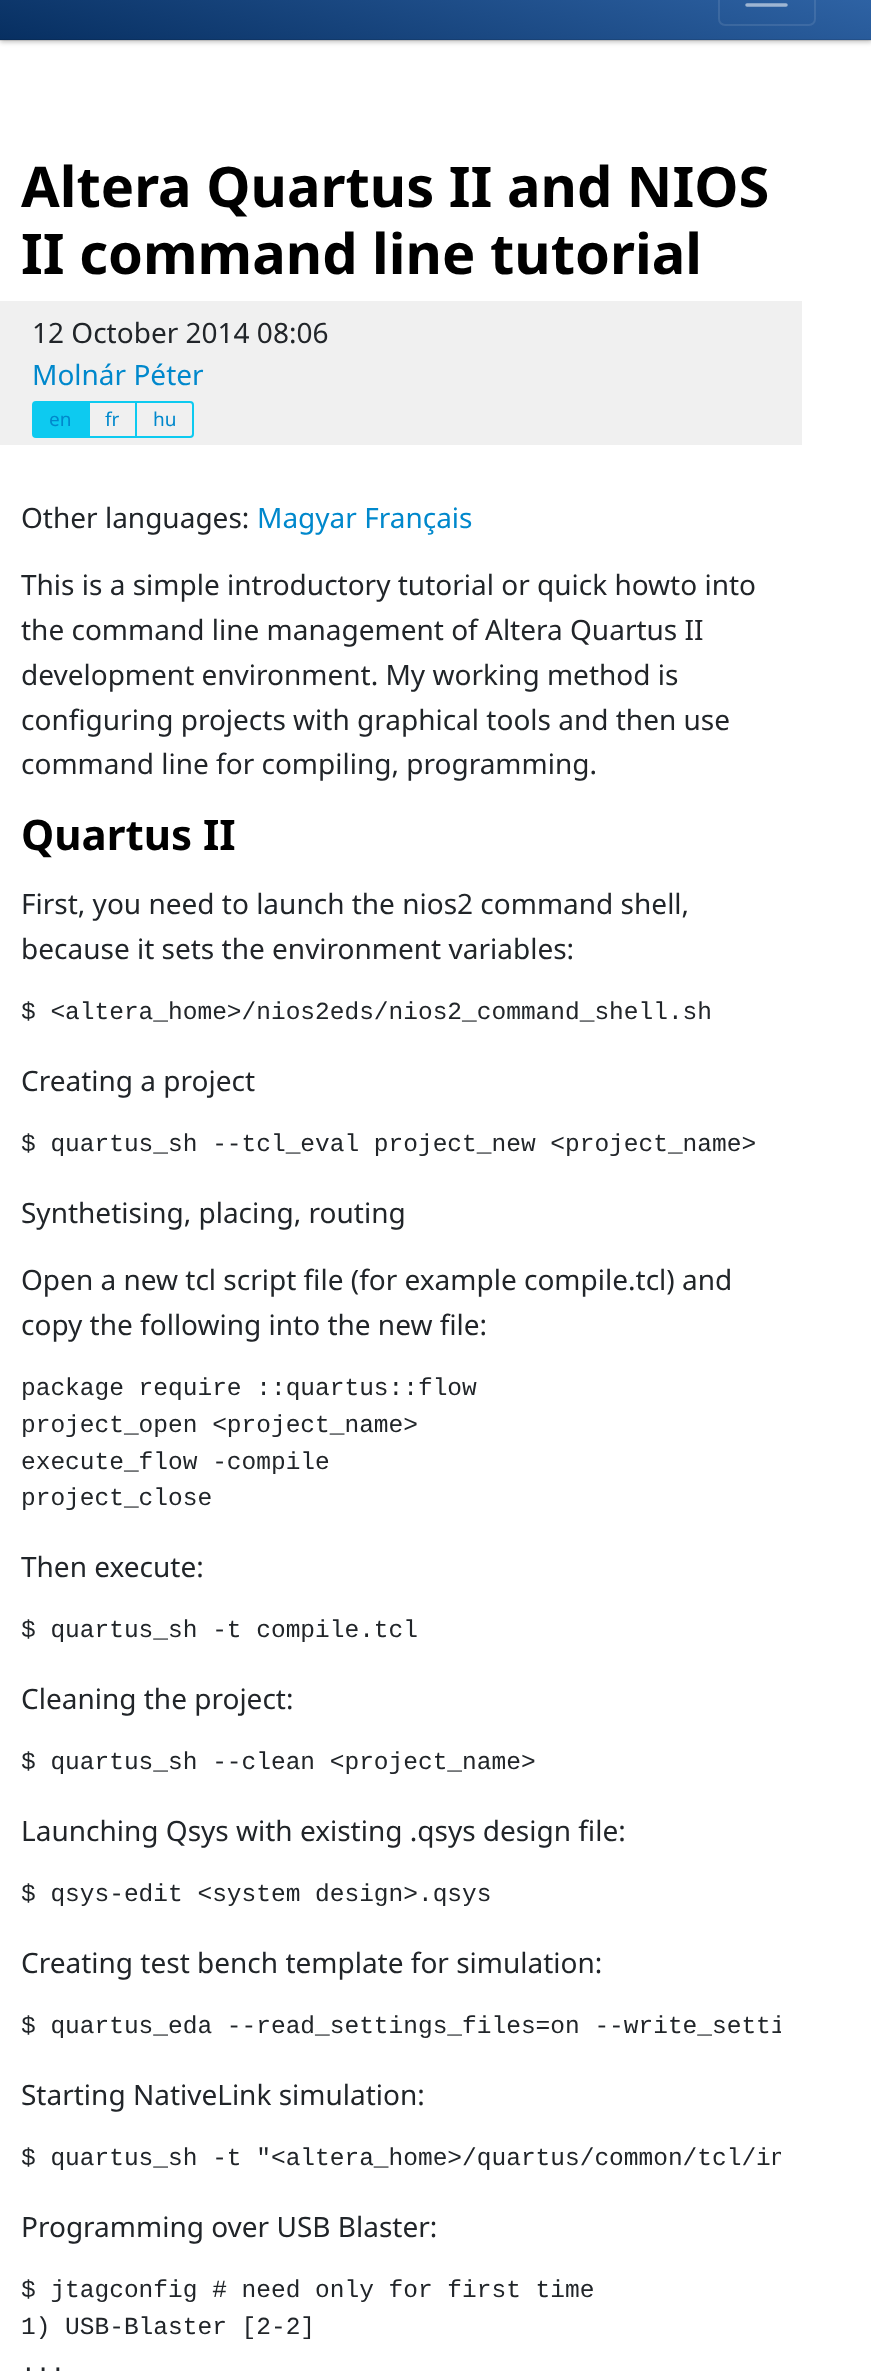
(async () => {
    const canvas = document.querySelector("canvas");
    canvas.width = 871;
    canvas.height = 2376;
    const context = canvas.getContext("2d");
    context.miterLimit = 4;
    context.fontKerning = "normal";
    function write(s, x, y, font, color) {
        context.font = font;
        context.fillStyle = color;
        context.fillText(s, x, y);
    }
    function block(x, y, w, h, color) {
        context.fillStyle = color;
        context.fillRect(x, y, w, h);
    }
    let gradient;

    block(0, 0, 871, 2376, "rgb(255, 255, 255)");
    context.fillStyle = "rgba(0, 0, 0, 0.25)";
    context.filter = "blur(2.5px)";
    context.beginPath();
    context.rect(0, -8, 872, 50);
    context.fill();
    context.filter = "none";
    gradient = context.createLinearGradient(394, 146, 477, -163);
    gradient.addColorStop(0, "rgb(7, 47, 97)");
    gradient.addColorStop(1, "rgb(54, 109, 178)");
    context.fillStyle = gradient;
    context.fillRect(0, 0, 871, 40);
    block(0, 39, 871, 2, "rgba(0, 0, 0, 0.1)");
    context.beginPath();
    context.roundRect(719, -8, 96, 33, 6);
    context.strokeStyle = "rgba(255, 255, 255, 0.1)";
    context.lineWidth = 2;
    context.stroke();
    context.beginPath();
    context.moveTo(747, -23);
    context.lineTo(786, -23);
    context.moveTo(747, -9);
    context.lineTo(786, -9);
    context.moveTo(747, 5);
    context.lineTo(786, 5);
    context.strokeStyle = "rgba(255, 255, 255, 0.55)";
    context.lineWidth = 3.5;
    context.lineCap = "round";
    context.stroke();
    write("Altera Quartus II and NIOS", 21, 207, "bold 56px Noto Sans", "rgb(0, 0, 0)");
    write("II command line tutorial", 21, 274, "bold 56px Noto Sans", "rgb(0, 0, 0)");
    block(0, 301, 802, 144, "rgb(240, 240, 240)");
    write("12 October 2014 08:06", 32, 343, "28px Noto Sans", "rgb(33, 37, 41)");
    write("Molnár Péter", 32, 385, "28px Noto Sans", "rgb(0, 136, 204)");
    context.fillStyle = "rgb(13, 202, 240)";
    context.beginPath();
    context.roundRect(33, 402, 55, 35, [3, 0, 0, 3]);
    context.fill();
    context.strokeStyle = "rgb(13, 202, 240)";
    context.lineWidth = 2;
    context.stroke();
    write("en", 49, 426, "19px Noto Sans", "rgb(0, 136, 204)");
    context.strokeRect(89, 402, 47, 35);
    write("fr", 105, 426, "19px Noto Sans", "rgb(0, 136, 204)");
    context.beginPath();
    context.roundRect(136, 402, 57, 35, [0, 3, 3, 0]);
    context.stroke();
    write("hu", 153, 426, "19px Noto Sans", "rgb(0, 136, 204)");
    write("Other languages:", 21, 528, "28px Noto Sans", "rgb(33, 37, 41)");
    write("Magyar Français", 257, 528, "28px Noto Sans", "rgb(0, 136, 204)");
    write("This is a simple introductory tutorial or quick howto into", 21, 595, "28px Noto Sans", "rgb(33, 37, 41)");
    write("the command line management of Altera Quartus II", 21, 640, "28px Noto Sans", "rgb(33, 37, 41)");
    write("development environment. My working method is", 21, 685, "28px Noto Sans", "rgb(33, 37, 41)");
    write("configuring projects with graphical tools and then use", 21, 730, "28px Noto Sans", "rgb(33, 37, 41)");
    write("command line for compiling, programming.", 21, 774, "28px Noto Sans", "rgb(33, 37, 41)");
    write("Quartus II", 21, 850, "bold 42px Noto Sans", "rgb(0, 0, 0)");
    write("First, you need to launch the nios2 command shell,", 21, 914, "28px Noto Sans", "rgb(33, 37, 41)");
    write("because it sets the environment variables:", 21, 959, "28px Noto Sans", "rgb(33, 37, 41)");
    write("$ <altera_home>/nios2eds/nios2_command_shell.sh", 21, 1019, "24.5px Liberation Mono", "rgb(33, 37, 41)");
    write("Creating a project", 21, 1091, "28px Noto Sans", "rgb(33, 37, 41)");
    write("$ quartus_sh --tcl_eval project_new <project_name>", 21, 1151, "24.5px Liberation Mono", "rgb(33, 37, 41)");
    write("Synthetising, placing, routing", 21, 1223, "28px Noto Sans", "rgb(33, 37, 41)");
    write("Open a new tcl script file (for example compile.tcl) and", 21, 1290, "28px Noto Sans", "rgb(33, 37, 41)");
    write("copy the following into the new file:", 21, 1335, "28px Noto Sans", "rgb(33, 37, 41)");
    write("package require ::quartus::flow", 21, 1395, "24.5px Liberation Mono", "rgb(33, 37, 41)");
    write("project_open <project_name>", 21, 1432, "24.5px Liberation Mono", "rgb(33, 37, 41)");
    write("execute_flow -compile", 21, 1469, "24.5px Liberation Mono", "rgb(33, 37, 41)");
    write("project_close", 21, 1505, "24.5px Liberation Mono", "rgb(33, 37, 41)");
    write("Then execute:", 21, 1577, "28px Noto Sans", "rgb(33, 37, 41)");
    write("$ quartus_sh -t compile.tcl", 21, 1637, "24.5px Liberation Mono", "rgb(33, 37, 41)");
    write("Cleaning the project:", 21, 1709, "28px Noto Sans", "rgb(33, 37, 41)");
    write("$ quartus_sh --clean <project_name>", 21, 1769, "24.5px Liberation Mono", "rgb(33, 37, 41)");
    write("Launching Qsys with existing .qsys design file:", 21, 1841, "28px Noto Sans", "rgb(33, 37, 41)");
    write("$ qsys-edit <system design>.qsys", 21, 1901, "24.5px Liberation Mono", "rgb(33, 37, 41)");
    write("Creating test bench template for simulation:", 21, 1973, "28px Noto Sans", "rgb(33, 37, 41)");
    context.save();
    context.beginPath();
    context.rect(21, 2009, 760, 37);
    context.clip();
    write("$ quartus_eda --read_settings_files=on --write_setti", 21, 2033, "24.5px Liberation Mono", "rgb(33, 37, 41)");
    context.restore();
    write("Starting NativeLink simulation:", 21, 2105, "28px Noto Sans", "rgb(33, 37, 41)");
    context.save();
    context.beginPath();
    context.rect(21, 2140, 760, 37);
    context.clip();
    write("$ quartus_sh -t \"<altera_home>/quartus/common/tcl/in", 21, 2165, "24.5px Liberation Mono", "rgb(33, 37, 41)");
    context.restore();
    write("Programming over USB Blaster:", 21, 2237, "28px Noto Sans", "rgb(33, 37, 41)");
    write("$ jtagconfig # need only for first time", 21, 2297, "24.5px Liberation Mono", "rgb(33, 37, 41)");
    write("1) USB-Blaster [2-2]", 21, 2334, "24.5px Liberation Mono", "rgb(33, 37, 41)");
    write("...", 21, 2371, "24.5px Liberation Mono", "rgb(33, 37, 41)");
})();
